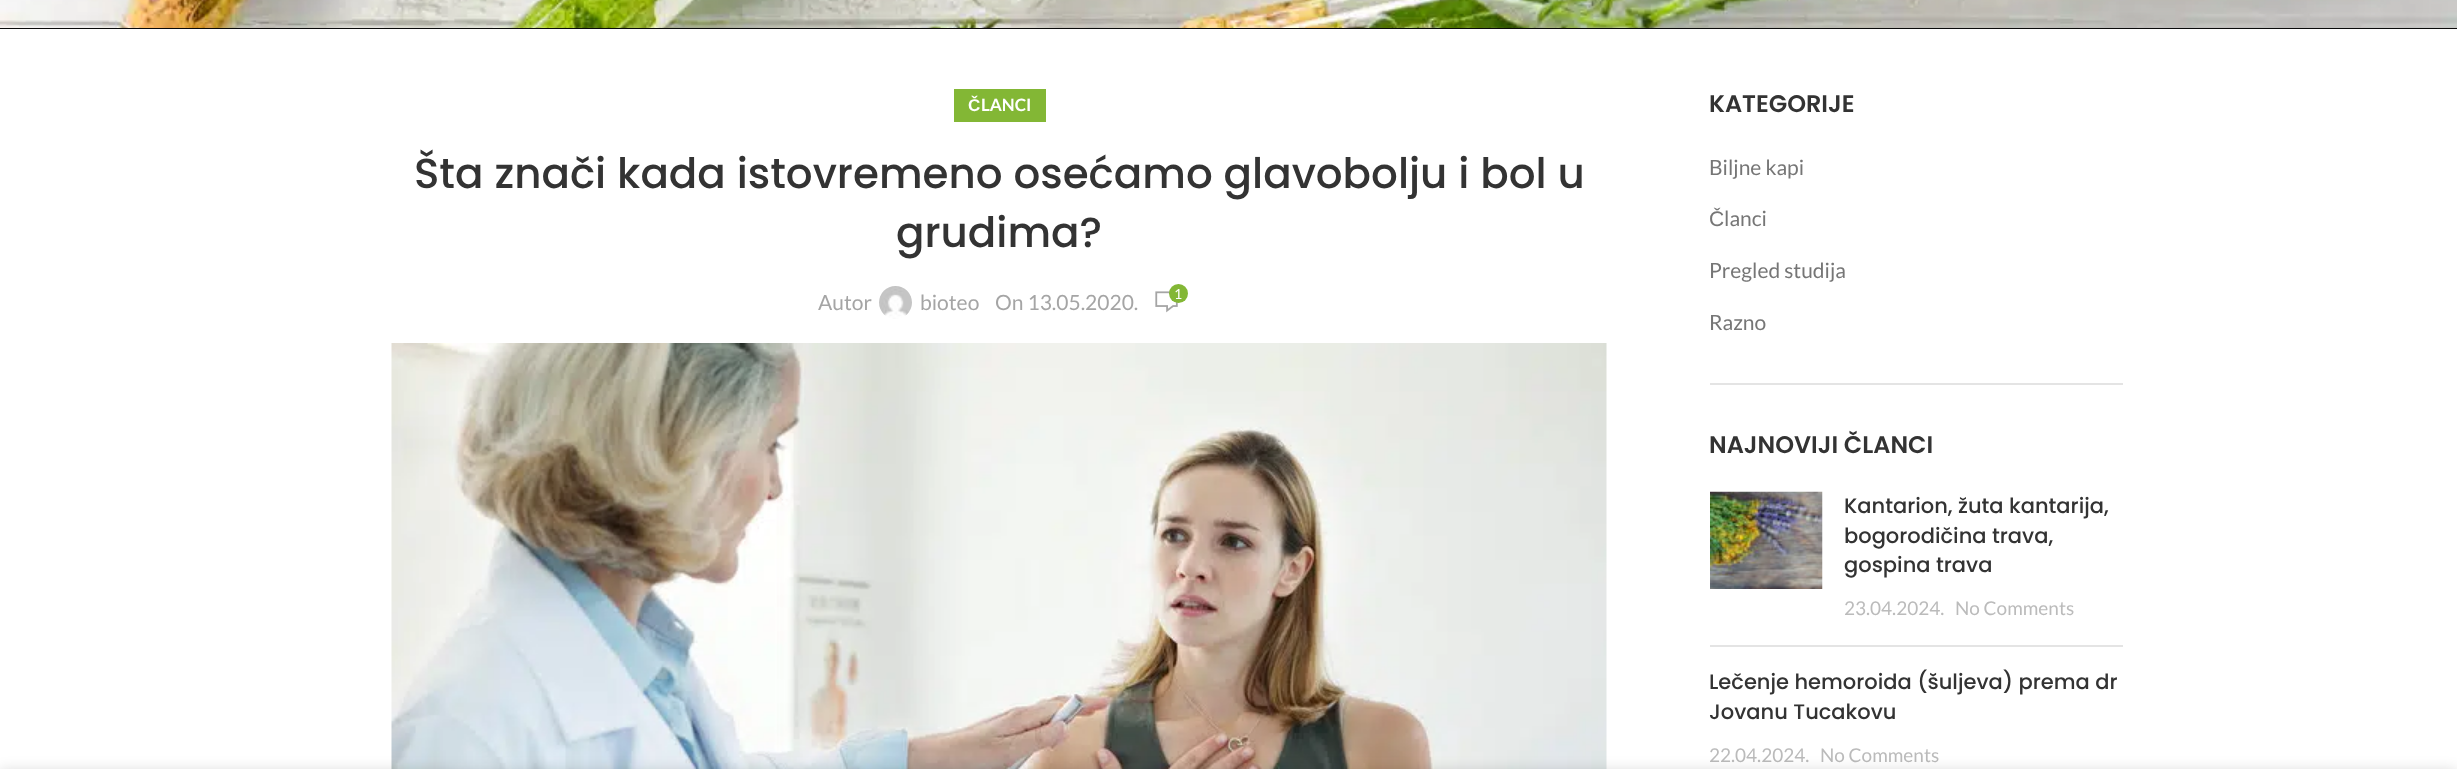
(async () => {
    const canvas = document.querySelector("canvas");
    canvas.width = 2457;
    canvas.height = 769;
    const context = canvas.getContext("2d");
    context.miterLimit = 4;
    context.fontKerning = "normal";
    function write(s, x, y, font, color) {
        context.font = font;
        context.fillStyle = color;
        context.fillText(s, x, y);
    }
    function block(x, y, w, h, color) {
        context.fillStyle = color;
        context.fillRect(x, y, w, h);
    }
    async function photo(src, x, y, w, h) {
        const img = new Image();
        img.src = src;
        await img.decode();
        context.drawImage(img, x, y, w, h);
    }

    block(0, 0, 2457, 769, "rgb(255, 255, 255)");
    block(0, 28, 2457, 1, "rgb(10, 10, 10)");
    await photo("media/1.png", 0, 0, 2457, 28);
    block(954, 89, 92, 33, "rgb(131, 183, 53)");
    write("Č", 968, 111, "bold 17px Liberation Sans", "rgb(255, 255, 255)");
    write("LANCI", 981, 111, "bold 17px Lato", "rgb(255, 255, 255)");
    write("Šta znači kada istovremeno osećamo glavobolju i bol u", 414, 188, "500 42px Poppins", "rgb(51, 51, 51)");
    write("grudima?", 896, 247, "500 42px Poppins", "rgb(51, 51, 51)");
    write("Autor", 818, 310, "21px Lato", "rgb(165, 165, 165)");
    await photo("media/2.png", 879, 286, 33, 33);
    write("bioteo", 920, 310, "21px Lato", "rgb(165, 165, 165)");
    write("On 13.05.2020.", 995, 310, "21px Lato", "rgb(165, 165, 165)");
    await photo("media/3.png", 1155, 291, 23, 22);
    context.fillStyle = "rgb(131, 183, 53)";
    context.beginPath();
    context.arc(1178.5, 293.5, 9.5, 0, Math.PI * 2);
    context.fill();
    write("1", 1174, 299, "14px Lato", "rgb(255, 255, 255)");
    await photo("media/4.png", 391, 343, 1216, 426);
    block(1710, 383, 413, 2, "rgb(228, 228, 228)");
    write("KATEGORIJE", 1709, 112, "600 24px Poppins", "rgb(51, 51, 51)");
    write("Biljne kapi", 1709, 175, "21px Lato", "rgb(118, 118, 118)");
    write("Č", 1709, 226, "21px Liberation Sans", "rgb(118, 118, 118)");
    write("lanci", 1724, 226, "21px Lato", "rgb(118, 118, 118)");
    write("Pregled studija", 1709, 278, "21px Lato", "rgb(118, 118, 118)");
    write("Razno", 1709, 330, "21px Lato", "rgb(118, 118, 118)");
    write("NAJNOVIJI ČLANCI", 1709, 453, "600 24px Poppins", "rgb(51, 51, 51)");
    block(1710, 645, 413, 2, "rgb(228, 228, 228)");
    await photo("media/5.png", 1710, 491, 113, 98);
    write("Kantarion, žuta kantarija,", 1844, 513, "500 21px Poppins", "rgb(51, 51, 51)");
    write("bogorodičina trava,", 1844, 543, "500 21px Poppins", "rgb(51, 51, 51)");
    write("gospina trava", 1844, 572, "500 21px Poppins", "rgb(51, 51, 51)");
    write("23.04.2024.", 1844, 615, "19px Lato", "rgb(187, 187, 187)");
    write("No Comments", 1955, 615, "19px Lato", "rgb(187, 187, 187)");
    write("Lečenje hemoroida (šuljeva) prema dr", 1709, 689, "500 21px Poppins", "rgb(51, 51, 51)");
    write("Jovanu Tucakovu", 1709, 719, "500 21px Poppins", "rgb(51, 51, 51)");
    write("22.04.2024.", 1709, 762, "19px Lato", "rgb(187, 187, 187)");
    write("No Comments", 1820, 762, "19px Lato", "rgb(187, 187, 187)");
    context.fillStyle = "rgba(0, 0, 0, 0.14)";
    context.filter = "blur(7px)";
    context.beginPath();
    context.rect(0, 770, 2457, 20);
    context.fill();
    context.filter = "none";
})();
